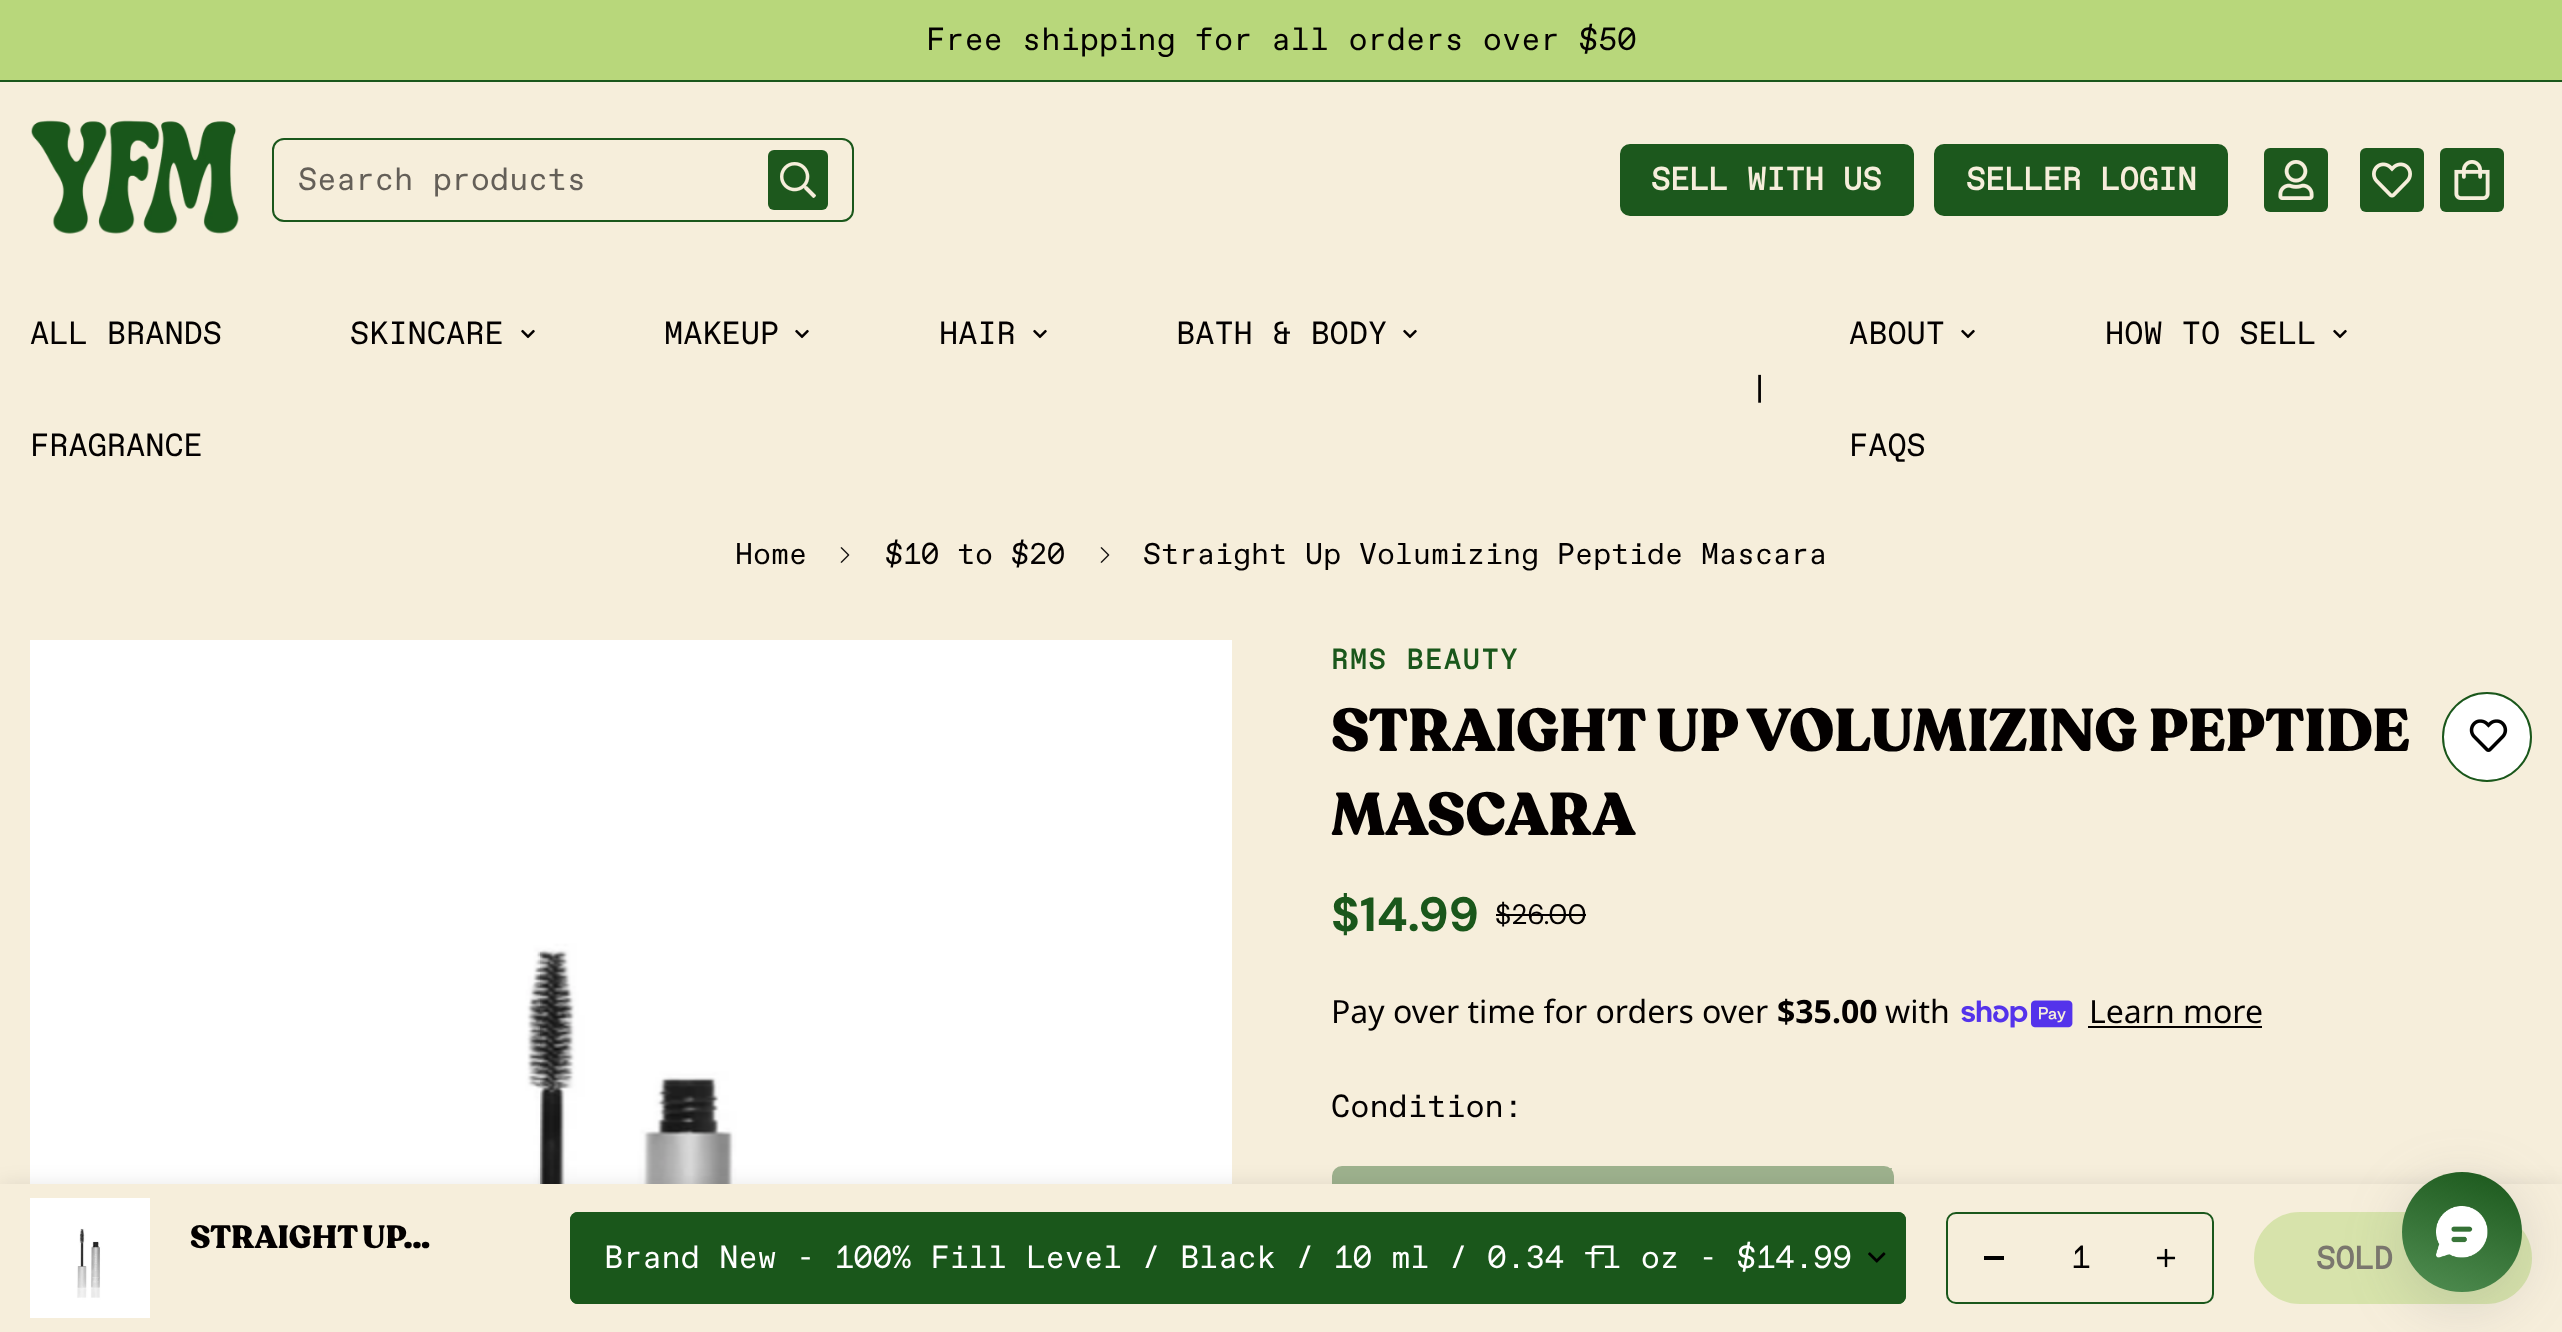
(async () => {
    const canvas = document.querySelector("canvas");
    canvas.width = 2562;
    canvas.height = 1332;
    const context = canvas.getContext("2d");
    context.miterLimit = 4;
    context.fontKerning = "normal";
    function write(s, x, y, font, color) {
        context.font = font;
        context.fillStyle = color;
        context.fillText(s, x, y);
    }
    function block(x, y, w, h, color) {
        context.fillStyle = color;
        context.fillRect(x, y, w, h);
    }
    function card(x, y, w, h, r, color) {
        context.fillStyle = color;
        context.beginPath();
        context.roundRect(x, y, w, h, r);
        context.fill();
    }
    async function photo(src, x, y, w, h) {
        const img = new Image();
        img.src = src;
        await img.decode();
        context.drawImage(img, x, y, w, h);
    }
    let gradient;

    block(0, 0, 2562, 1332, "rgb(246, 238, 219)");
    block(0, 0, 2562, 80, "rgb(184, 215, 123)");
    block(0, 80, 2562, 2, "rgb(26, 87, 27)");
    write("Free shipping for all orders over $50", 926, 50, "32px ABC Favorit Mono", "rgb(3, 0, 0)");
    await photo("media/1.png", 31, 120, 208, 114);
    context.beginPath();
    context.roundRect(273, 139, 580, 82, 11);
    context.strokeStyle = "rgb(26, 87, 27)";
    context.lineWidth = 2;
    context.stroke();
    write("Search products", 298, 190, "32px ABC Favorit Mono", "rgb(100, 95, 88)");
    card(768, 150, 60, 60, 6, "rgb(29, 88, 29)");
    await photo("media/2.png", 780, 162, 36, 36);
    context.fillStyle = "rgb(28, 88, 29)";
    context.beginPath();
    context.roundRect(1621, 145, 292, 70, 9);
    context.fill();
    context.strokeStyle = "rgb(28, 88, 29)";
    context.stroke();
    write("SELL WITH US", 1651, 190, "bold 32px ABC Favorit Mono", "rgb(246, 238, 219)");
    context.fillStyle = "rgb(28, 88, 29)";
    context.beginPath();
    context.roundRect(1935, 145, 292, 70, 9);
    context.fill();
    context.stroke();
    write("SELLER LOGIN", 1966, 190, "bold 32px ABC Favorit Mono", "rgb(246, 238, 219)");
    card(2264, 148, 64, 64, 6, "rgb(29, 88, 29)");
    await photo("media/3.png", 2278, 160, 36, 40);
    card(2360, 148, 64, 64, 6, "rgb(29, 88, 29)");
    await photo("media/4.png", 2372, 162, 40, 36);
    card(2440, 148, 64, 64, 6, "rgb(29, 88, 29)");
    await photo("media/5.png", 2454, 160, 36, 40);
    write("ALL BRANDS", 30, 344, "32px ABC Favorit Mono", "rgb(3, 0, 0)");
    write("SKINCARE", 350, 344, "32px ABC Favorit Mono", "rgb(3, 0, 0)");
    await photo("media/6.png", 521, 329, 14, 10);
    write("MAKEUP", 664, 344, "32px ABC Favorit Mono", "rgb(3, 0, 0)");
    await photo("media/6.png", 795, 329, 14, 10);
    write("HAIR", 939, 344, "32px ABC Favorit Mono", "rgb(3, 0, 0)");
    await photo("media/6.png", 1033, 329, 14, 10);
    write("BATH & BODY", 1176, 344, "32px ABC Favorit Mono", "rgb(3, 0, 0)");
    await photo("media/6.png", 1403, 329, 14, 10);
    write("FRAGRANCE", 30, 456, "32px ABC Favorit Mono", "rgb(3, 0, 0)");
    write("|", 1750, 400, "32px ABC Favorit Mono", "rgb(3, 0, 0)");
    write("ABOUT", 1849, 344, "32px ABC Favorit Mono", "rgb(3, 0, 0)");
    await photo("media/6.png", 1961, 329, 14, 10);
    write("HOW TO SELL", 2105, 344, "32px ABC Favorit Mono", "rgb(3, 0, 0)");
    await photo("media/6.png", 2333, 329, 14, 10);
    write("FAQS", 1849, 456, "32px ABC Favorit Mono", "rgb(3, 0, 0)");
    write("Home", 735, 564, "30px ABC Favorit Mono", "rgb(3, 0, 0)");
    await photo("media/7.png", 840, 547, 10, 16);
    write("$10 to $20", 885, 564, "30px ABC Favorit Mono", "rgb(3, 0, 0)");
    await photo("media/7.png", 1100, 547, 10, 16);
    write("Straight Up Volumizing Peptide Mascara", 1143, 564, "30px ABC Favorit Mono", "rgb(3, 0, 0)");
    await photo("media/8.png", 30, 640, 1202, 544);
    context.letterSpacing = "2px";
    write("RMS BEAUTY", 1331, 669, "bold 28px ABC Favorit Mono", "rgb(26, 87, 27)");
    context.letterSpacing = "0px";
    write("STRAIGHT UP VOLUMIZING PEPTIDE", 1331, 751, "900 60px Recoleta", "rgb(3, 0, 0)");
    write("MASCARA", 1331, 835, "900 60px Recoleta", "rgb(3, 0, 0)");
    context.fillStyle = "rgb(255, 255, 255)";
    context.beginPath();
    context.arc(2487, 737, 44, 0, Math.PI * 2);
    context.fill();
    context.strokeStyle = "rgb(26, 87, 27)";
    context.stroke();
    await photo("media/9.png", 2469, 719, 39, 33);
    write("$14.99", 1331, 931, "bold 48px DM Sans", "rgb(26, 87, 27)");
    write("$26.00", 1495, 924, "28px DM Sans", "rgb(3, 0, 0)");
    block(1496, 914, 90, 2, "rgb(3, 0, 0)");
    write("Pay over time for orders over", 1331, 1023, "32px Noto Sans", "rgb(3, 0, 0)");
    write("$35.00", 1777, 1023, "bold 32px Noto Sans", "rgb(3, 0, 0)");
    write("with", 1885, 1023, "32px Noto Sans", "rgb(3, 0, 0)");
    await photo("media/10.png", 1961, 1000, 112, 28);
    write("Learn more", 2089, 1023, "32px Noto Sans", "rgb(3, 0, 0)");
    block(2088, 1026, 174, 2, "rgb(3, 0, 0)");
    write("Condition:", 1331, 1117, "32px ABC Favorit Mono", "rgb(3, 0, 0)");
    context.fillStyle = "rgb(158, 178, 142)";
    context.beginPath();
    context.roundRect(1333, 1167, 560, 82, 9);
    context.fill();
    context.strokeStyle = "rgb(158, 178, 142)";
    context.stroke();
    gradient = context.createLinearGradient(1602, 1130, 1624, 1286);
    gradient.addColorStop(0.49, "rgba(158, 178, 142, 0)");
    gradient.addColorStop(0.5, "rgb(158, 178, 142)");
    gradient.addColorStop(0.51, "rgba(158, 178, 142, 0)");
    context.fillStyle = gradient;
    context.fillRect(1890, 1168, 2, 2);
    context.fillStyle = "rgba(0, 0, 0, 0.09)";
    context.filter = "blur(10px)";
    context.beginPath();
    context.rect(0, 1184, 2562, 148);
    context.fill();
    context.filter = "none";
    block(0, 1184, 2562, 148, "rgb(246, 238, 219)");
    await photo("media/11.png", 30, 1198, 120, 120);
    context.wordSpacing = "-1px";
    write("STRAIGHT UP…", 190, 1248, "900 32px Recoleta", "rgb(3, 0, 0)");
    card(570, 1212, 1336, 92, 8, "rgb(26, 87, 27)");
    await photo("media/12.png", 1868, 1252, 18, 11);
    context.beginPath();
    context.roundRect(571, 1213, 1334, 90, 7);
    context.strokeStyle = "rgb(26, 87, 27)";
    context.stroke();
    context.wordSpacing = "0px";
    write("Brand New - 100% Fill Level / Black / 10 ml / 0.34 fl oz - $14.99", 604, 1268, "32px ABC Favorit Mono", "rgb(255, 255, 255)");
    context.beginPath();
    context.roundRect(1947, 1213, 266, 90, 9);
    context.stroke();
    block(1984, 1256, 20, 4, "rgb(0, 0, 0)");
    write("1", 2071, 1268, "32px ABC Favorit Mono", "rgb(3, 0, 0)");
    await photo("media/13.png", 2156, 1248, 20, 20);
    context.fillStyle = "rgb(215, 227, 171)";
    context.beginPath();
    context.roundRect(2255, 1213, 276, 90, 45);
    context.fill();
    context.strokeStyle = "rgb(215, 227, 171)";
    context.stroke();
    write("SOLD", 2316, 1269, "bold 32px ABC Favorit Mono", "rgb(123, 119, 110)");
    context.fillStyle = "rgba(100, 100, 111, 0.2)";
    context.filter = "blur(29px)";
    context.beginPath();
    context.roundRect(2402, 1186, 120, 120, 60);
    context.fill();
    context.filter = "none";
    gradient = context.createLinearGradient(2487, 1160, 2437, 1304);
    gradient.addColorStop(0, "rgb(26, 87, 27)");
    gradient.addColorStop(1, "rgb(81, 142, 82)");
    context.fillStyle = gradient;
    context.beginPath();
    context.arc(2462, 1232, 60, 0, Math.PI * 2);
    context.fill();
    await photo("media/14.png", 2436, 1206, 52, 52);
})();
